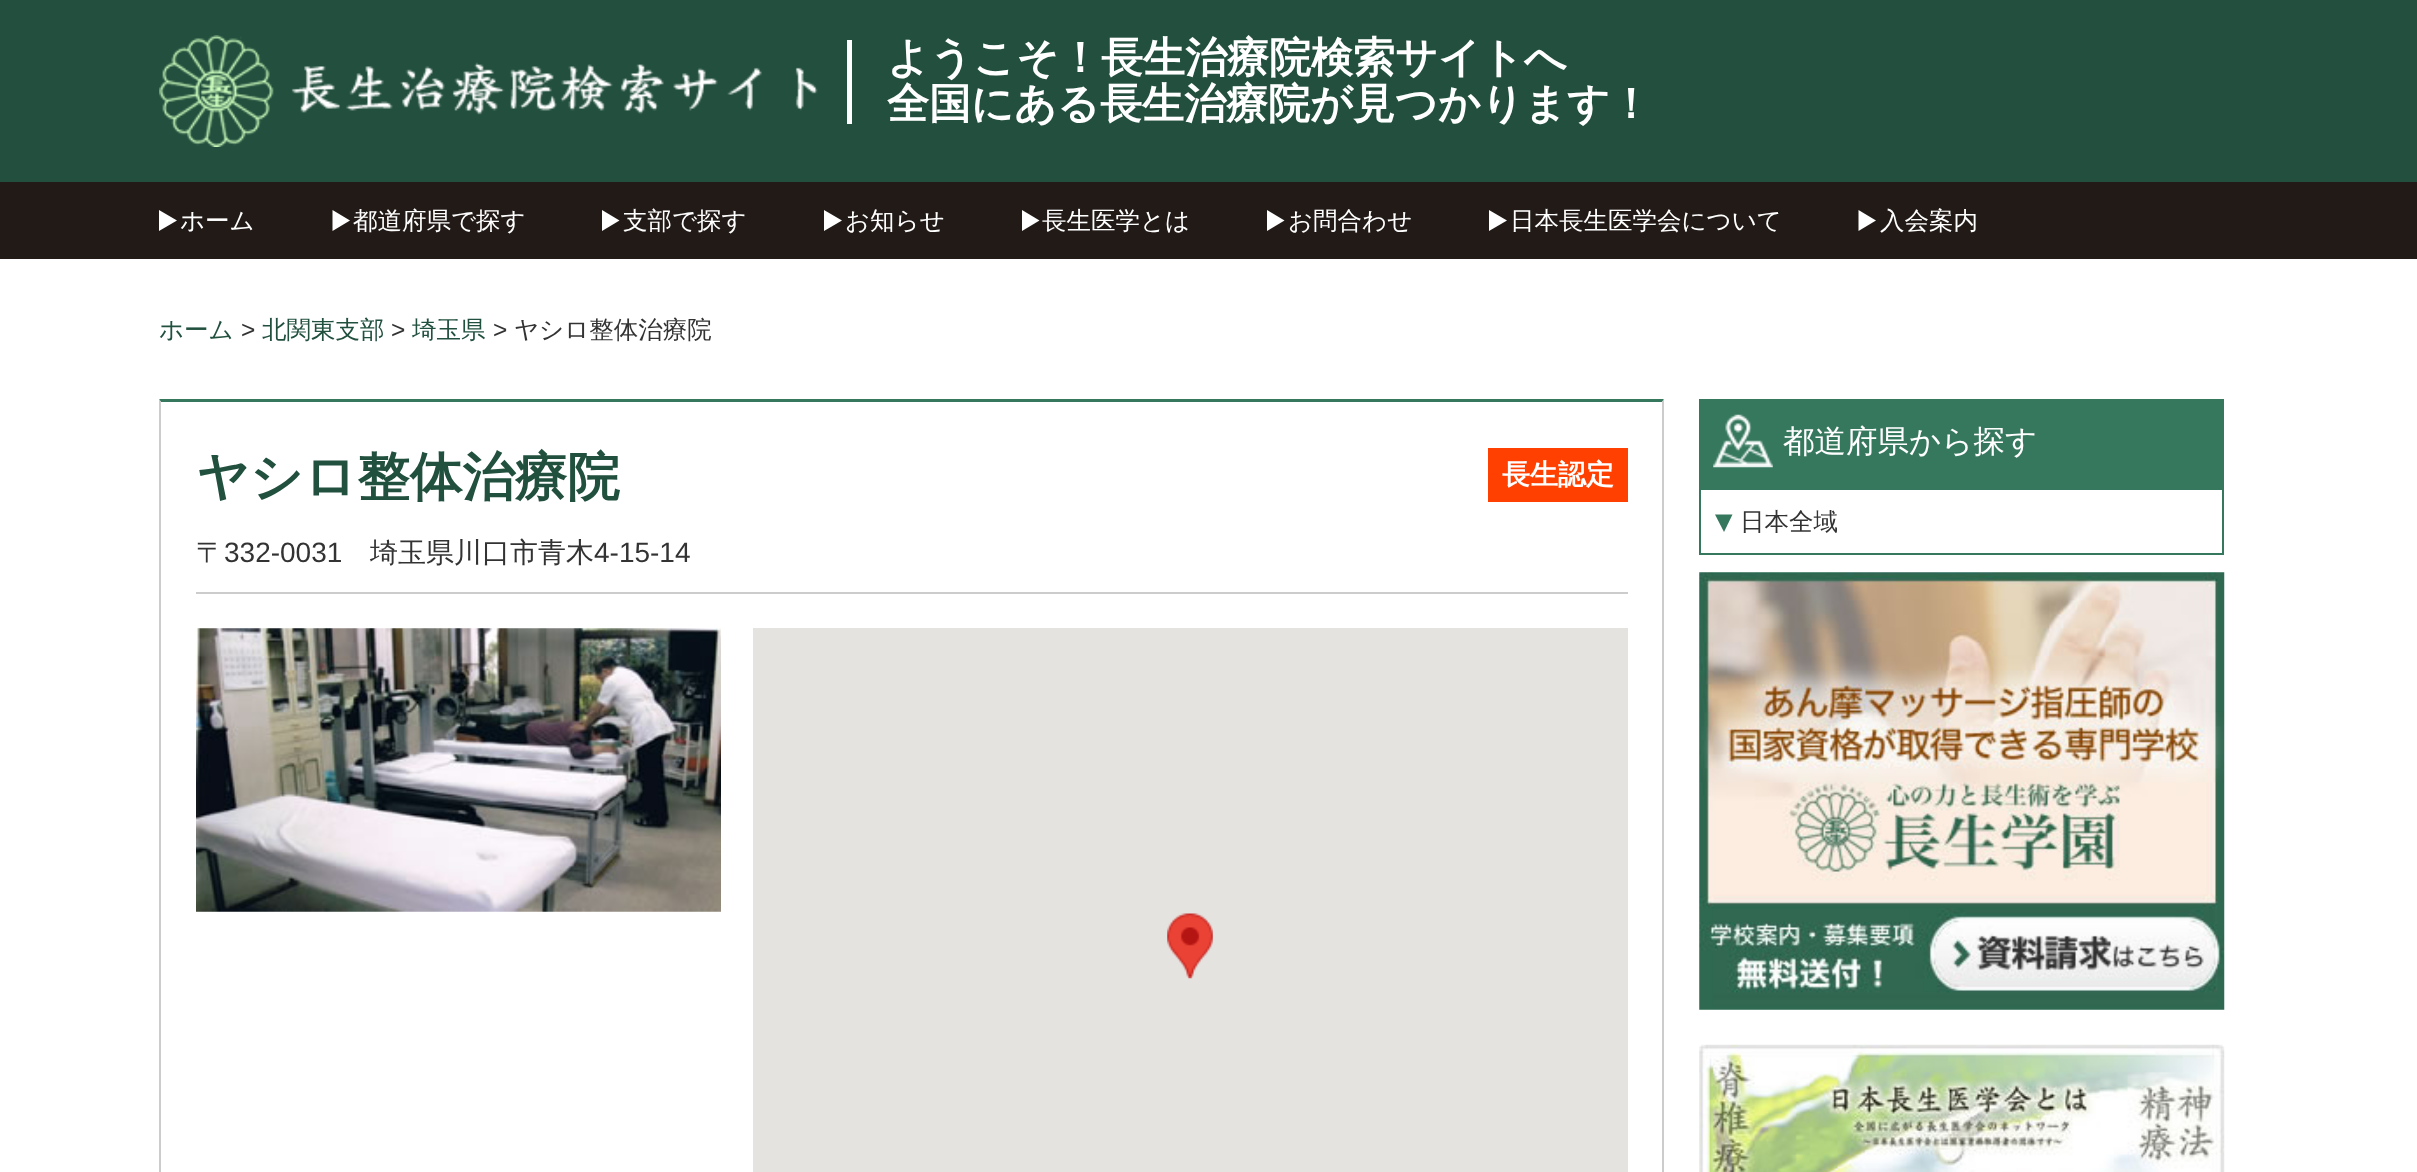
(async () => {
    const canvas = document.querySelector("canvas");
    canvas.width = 2417;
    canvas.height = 1172;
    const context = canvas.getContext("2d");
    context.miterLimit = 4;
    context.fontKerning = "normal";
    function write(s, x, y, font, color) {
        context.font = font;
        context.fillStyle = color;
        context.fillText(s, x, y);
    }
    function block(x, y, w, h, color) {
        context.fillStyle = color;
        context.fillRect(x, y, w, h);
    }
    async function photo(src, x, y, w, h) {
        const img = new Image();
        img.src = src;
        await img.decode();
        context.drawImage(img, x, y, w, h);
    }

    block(0, 0, 2417, 1172, "rgb(255, 255, 255)");
    block(0, 0, 2417, 182, "rgb(35, 80, 62)");
    await photo("media/1.png", 159, 35, 659, 112);
    block(847, 40, 5, 84, "rgb(255, 255, 255)");
    write("ようこそ！長生治療院検索サイトへ", 887, 72, "bold 42px WenQuanYi Zen Hei", "rgb(255, 255, 255)");
    write("全国にある長生治療院が見つかります！", 887, 118, "bold 42px WenQuanYi Zen Hei", "rgb(255, 255, 255)");
    block(0, 182, 2417, 77, "rgb(34, 26, 23)");
    context.fillStyle = "rgb(255, 255, 255)";
    context.beginPath();
    context.moveTo(159, 231);
    context.lineTo(159, 210);
    context.lineTo(177, 220.5);
    context.closePath();
    context.fill();
    write("ホーム", 180, 229, "500 24.5px WenQuanYi Zen Hei", "rgb(255, 255, 255)");
    context.beginPath();
    context.moveTo(332.5, 231);
    context.lineTo(332.5, 210);
    context.lineTo(350, 220.5);
    context.closePath();
    context.fill();
    write("都道府県で探す", 353, 229, "500 24.5px WenQuanYi Zen Hei", "rgb(255, 255, 255)");
    context.beginPath();
    context.moveTo(602, 231);
    context.lineTo(602, 210);
    context.lineTo(619.5, 220.5);
    context.closePath();
    context.fill();
    write("支部で探す", 623, 229, "500 24.5px WenQuanYi Zen Hei", "rgb(255, 255, 255)");
    context.beginPath();
    context.moveTo(824, 231);
    context.lineTo(824, 210);
    context.lineTo(842, 220.5);
    context.closePath();
    context.fill();
    write("お知らせ", 845, 229, "500 24.5px WenQuanYi Zen Hei", "rgb(255, 255, 255)");
    context.beginPath();
    context.moveTo(1022, 231);
    context.lineTo(1022, 210);
    context.lineTo(1039.5, 220.5);
    context.closePath();
    context.fill();
    write("長生医学とは", 1042, 229, "500 24.5px WenQuanYi Zen Hei", "rgb(255, 255, 255)");
    context.beginPath();
    context.moveTo(1267, 231);
    context.lineTo(1267, 210);
    context.lineTo(1284.5, 220.5);
    context.closePath();
    context.fill();
    write("お問合わせ", 1288, 229, "500 24.5px WenQuanYi Zen Hei", "rgb(255, 255, 255)");
    context.beginPath();
    context.moveTo(1489, 231);
    context.lineTo(1489, 210);
    context.lineTo(1507, 220.5);
    context.closePath();
    context.fill();
    write("日本長生医学会について", 1510, 229, "500 24.5px WenQuanYi Zen Hei", "rgb(255, 255, 255)");
    context.beginPath();
    context.moveTo(1858.5, 231);
    context.lineTo(1858.5, 210);
    context.lineTo(1876, 220.5);
    context.closePath();
    context.fill();
    write("入会案内", 1880, 229, "500 24.5px WenQuanYi Zen Hei", "rgb(255, 255, 255)");
    write("ホーム", 159, 338, "500 24.5px WenQuanYi Zen Hei", "rgb(33, 80, 62)");
    write(">", 241, 338, "24.5px Liberation Sans", "rgb(51, 51, 51)");
    write("北関東支部", 262, 338, "500 24.5px WenQuanYi Zen Hei", "rgb(33, 80, 62)");
    write(">", 391, 338, "24.5px Liberation Sans", "rgb(51, 51, 51)");
    write("埼玉県", 412, 338, "500 24.5px WenQuanYi Zen Hei", "rgb(33, 80, 62)");
    write(">", 493, 338, "24.5px Liberation Sans", "rgb(51, 51, 51)");
    write("ヤシロ整体治療院", 514, 338, "500 24.5px WenQuanYi Zen Hei", "rgb(51, 51, 51)");
    context.fillStyle = "rgb(54, 120, 94)";
    context.beginPath();
    context.moveTo(159, 399);
    context.lineTo(1664, 399);
    context.lineTo(1662, 402);
    context.lineTo(161, 402);
    context.closePath();
    context.fill();
    context.fillStyle = "rgb(204, 204, 204)";
    context.beginPath();
    context.moveTo(1664, 399);
    context.lineTo(1664, 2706);
    context.lineTo(1662, 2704);
    context.lineTo(1662, 402);
    context.closePath();
    context.fill();
    context.beginPath();
    context.moveTo(159, 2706);
    context.lineTo(159, 399);
    context.lineTo(161, 402);
    context.lineTo(161, 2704);
    context.closePath();
    context.fill();
    write("ヤシロ整体治療院", 196, 495, "bold 52.5px WenQuanYi Zen Hei", "rgb(33, 80, 62)");
    block(1488, 448, 140, 54, "rgb(255, 64, 0)");
    write("長生認定", 1502, 484, "bold 28px WenQuanYi Zen Hei", "rgb(255, 255, 255)");
    write("〒", 196, 562, "500 28px WenQuanYi Zen Hei", "rgb(51, 51, 51)");
    write("332-0031", 224, 562, "28px Liberation Sans", "rgb(51, 51, 51)");
    write("埼玉県川口市青木", 370, 562, "500 28px WenQuanYi Zen Hei", "rgb(51, 51, 51)");
    write("4-15-14", 594, 562, "28px Liberation Sans", "rgb(51, 51, 51)");
    block(196, 592, 1432, 2, "rgb(204, 204, 204)");
    await photo("media/2.png", 196, 628, 525, 284);
    block(753, 628, 875, 544, "rgb(229, 227, 223)");
    await photo("media/3.png", 1167, 913, 46, 66);
    block(1699, 399, 525, 89, "rgb(54, 120, 94)");
    await photo("media/4.png", 1713, 414, 60, 54);
    write("都道府県から探す", 1783, 452, "500 31.5px WenQuanYi Zen Hei", "rgb(255, 255, 255)");
    context.strokeStyle = "rgb(54, 120, 94)";
    context.lineWidth = 2;
    context.strokeRect(1700, 489, 523, 65);
    context.fillStyle = "rgb(54, 120, 94)";
    context.beginPath();
    context.moveTo(1715, 514.5);
    context.lineTo(1732.5, 514.5);
    context.lineTo(1724, 532);
    context.closePath();
    context.fill();
    write("日本全域", 1740, 530, "500 24.5px WenQuanYi Zen Hei", "rgb(51, 51, 51)");
    await photo("media/5.png", 1699, 572, 526, 438);
    await photo("media/6.png", 1699, 1044, 526, 128);
})();
